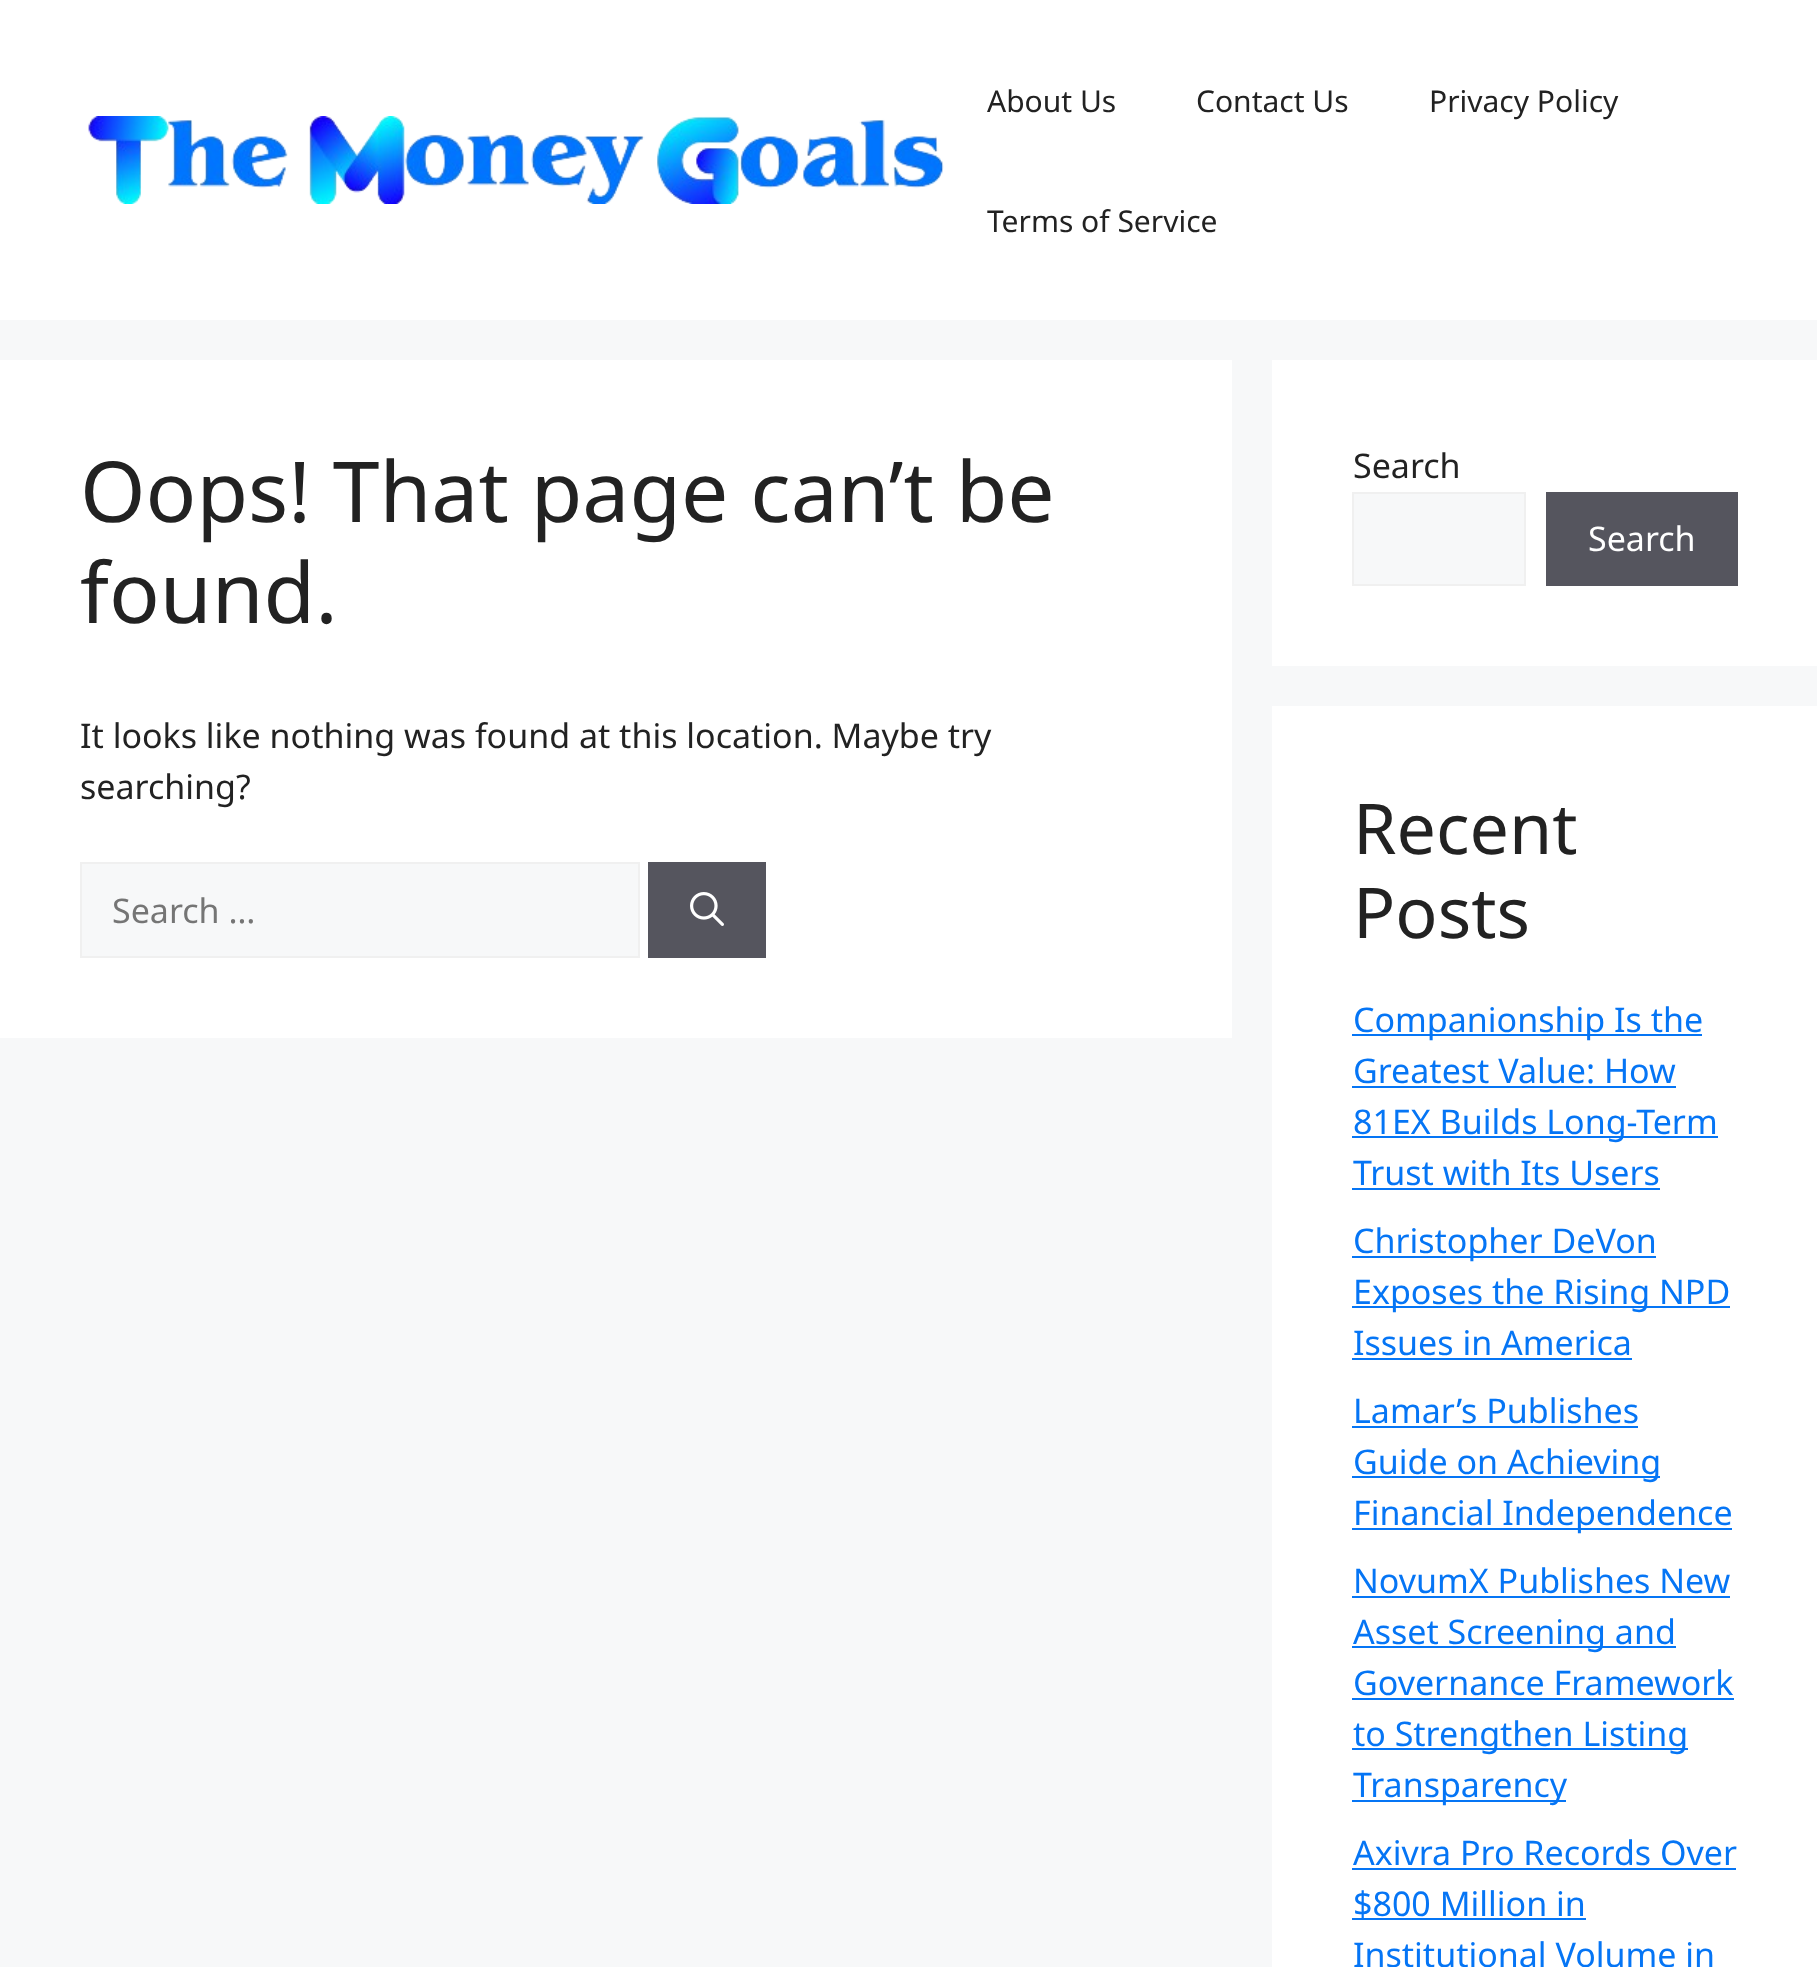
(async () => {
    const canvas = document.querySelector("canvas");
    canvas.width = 1817;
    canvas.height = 1967;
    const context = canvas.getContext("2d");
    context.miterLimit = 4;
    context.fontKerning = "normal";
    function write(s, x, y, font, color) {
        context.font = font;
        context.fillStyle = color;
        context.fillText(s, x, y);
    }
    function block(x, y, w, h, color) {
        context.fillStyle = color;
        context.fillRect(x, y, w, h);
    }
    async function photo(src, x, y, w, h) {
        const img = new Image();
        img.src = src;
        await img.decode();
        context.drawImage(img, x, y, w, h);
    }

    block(0, 0, 1817, 1967, "rgb(247, 248, 249)");
    block(0, 0, 1817, 320, "rgb(255, 255, 255)");
    await photo("media/1.png", 88, 116, 856, 88);
    write("About Us", 987, 112, "30px Noto Sans", "rgb(34, 34, 34)");
    write("Contact Us", 1196, 112, "30px Noto Sans", "rgb(34, 34, 34)");
    write("Privacy Policy", 1429, 112, "30px Noto Sans", "rgb(34, 34, 34)");
    write("Terms of Service", 987, 232, "30px Noto Sans", "rgb(34, 34, 34)");
    block(0, 360, 1232, 678, "rgb(255, 255, 255)");
    write("Oops! That page can’t be", 80, 522, "84px Noto Sans", "rgb(34, 34, 34)");
    write("found.", 80, 623, "84px Noto Sans", "rgb(34, 34, 34)");
    write("It looks like nothing was found at this location. Maybe try", 80, 748, "34px Noto Sans", "rgb(34, 34, 34)");
    write("searching?", 80, 799, "34px Noto Sans", "rgb(34, 34, 34)");
    context.fillStyle = "rgb(247, 248, 249)";
    context.beginPath();
    context.rect(81, 863, 558, 94);
    context.fill();
    context.strokeStyle = "rgb(240, 240, 240)";
    context.lineWidth = 2;
    context.stroke();
    write("Search …", 112, 923, "34px Noto Sans", "rgb(117, 117, 117)");
    block(648, 862, 118, 96, "rgb(85, 85, 94)");
    await photo("media/2.png", 690, 892, 34, 34);
    block(1272, 360, 545, 306, "rgb(255, 255, 255)");
    write("Search", 1353, 478, "34px Noto Sans", "rgb(34, 34, 34)");
    context.fillStyle = "rgb(247, 248, 249)";
    context.beginPath();
    context.rect(1353, 493, 172, 92);
    context.fill();
    context.stroke();
    block(1546, 492, 192, 94, "rgb(85, 85, 94)");
    write("Search", 1588, 551, "34px Noto Sans", "rgb(255, 255, 255)");
    block(1272, 706, 545, 1261, "rgb(255, 255, 255)");
    write("Recent", 1353, 854, "70px Noto Sans", "rgb(34, 34, 34)");
    write("Posts", 1353, 938, "70px Noto Sans", "rgb(34, 34, 34)");
    block(1352, 1034, 350, 2, "rgb(5, 117, 245)");
    write("Companionship Is the", 1353, 1032, "34px Noto Sans", "rgb(5, 117, 245)");
    write("Greatest Value: How", 1353, 1083, "34px Noto Sans", "rgb(5, 117, 245)");
    block(1352, 1086, 324, 2, "rgb(5, 117, 245)");
    block(1352, 1136, 366, 2, "rgb(5, 117, 245)");
    write("81EX Builds Long-Term", 1353, 1134, "34px Noto Sans", "rgb(5, 117, 245)");
    write("Trust with Its Users", 1353, 1185, "34px Noto Sans", "rgb(5, 117, 245)");
    block(1352, 1188, 308, 2, "rgb(5, 117, 245)");
    block(1352, 1256, 304, 2, "rgb(5, 117, 245)");
    write("Christopher DeVon", 1353, 1253, "34px Noto Sans", "rgb(5, 117, 245)");
    block(1352, 1306, 378, 2, "rgb(5, 117, 245)");
    write("Exposes the Rising NPD", 1353, 1304, "34px Noto Sans", "rgb(5, 117, 245)");
    write("Issues in America", 1353, 1355, "34px Noto Sans", "rgb(5, 117, 245)");
    block(1352, 1358, 280, 2, "rgb(5, 117, 245)");
    write("Lamar’s Publishes", 1353, 1423, "34px Noto Sans", "rgb(5, 117, 245)");
    block(1352, 1426, 286, 2, "rgb(5, 117, 245)");
    block(1352, 1476, 308, 2, "rgb(5, 117, 245)");
    write("Guide on Achieving", 1353, 1474, "34px Noto Sans", "rgb(5, 117, 245)");
    block(1352, 1528, 380, 2, "rgb(5, 117, 245)");
    write("Financial Independence", 1353, 1525, "34px Noto Sans", "rgb(5, 117, 245)");
    write("NovumX Publishes New", 1353, 1593, "34px Noto Sans", "rgb(5, 117, 245)");
    block(1352, 1596, 378, 2, "rgb(5, 117, 245)");
    block(1352, 1646, 324, 2, "rgb(5, 117, 245)");
    write("Asset Screening and", 1353, 1644, "34px Noto Sans", "rgb(5, 117, 245)");
    write("Governance Framework", 1353, 1695, "34px Noto Sans", "rgb(5, 117, 245)");
    block(1352, 1698, 382, 2, "rgb(5, 117, 245)");
    block(1352, 1748, 336, 2, "rgb(5, 117, 245)");
    write("to Strengthen Listing", 1353, 1746, "34px Noto Sans", "rgb(5, 117, 245)");
    block(1352, 1800, 214, 2, "rgb(5, 117, 245)");
    write("Transparency", 1353, 1797, "34px Noto Sans", "rgb(5, 117, 245)");
    write("Axivra Pro Records Over", 1353, 1865, "34px Noto Sans", "rgb(5, 117, 245)");
    block(1352, 1868, 384, 2, "rgb(5, 117, 245)");
    write("$800 Million in", 1353, 1916, "34px Noto Sans", "rgb(5, 117, 245)");
    block(1352, 1918, 234, 2, "rgb(5, 117, 245)");
    write("Institutional Volume in", 1353, 1967, "34px Noto Sans", "rgb(5, 117, 245)");
})();
